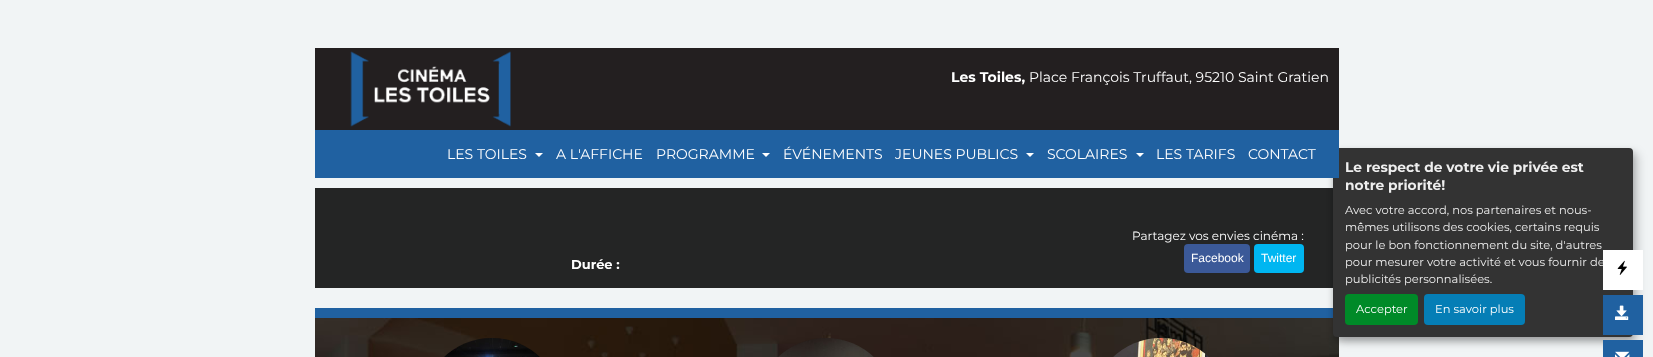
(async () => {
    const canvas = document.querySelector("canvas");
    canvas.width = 1653;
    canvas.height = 357;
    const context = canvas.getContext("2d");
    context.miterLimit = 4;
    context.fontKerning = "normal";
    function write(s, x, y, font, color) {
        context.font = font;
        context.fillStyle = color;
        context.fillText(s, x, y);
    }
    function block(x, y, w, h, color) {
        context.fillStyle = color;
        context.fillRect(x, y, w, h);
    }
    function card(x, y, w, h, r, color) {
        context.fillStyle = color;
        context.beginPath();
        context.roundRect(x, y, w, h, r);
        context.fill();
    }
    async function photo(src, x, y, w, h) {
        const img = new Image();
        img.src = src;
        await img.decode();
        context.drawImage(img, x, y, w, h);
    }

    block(0, 0, 1653, 357, "rgb(241, 244, 245)");
    block(315, 48, 1024, 82, "rgb(35, 31, 32)");
    write("Les Toiles,", 951, 82, "bold 14px Montserrat", "rgb(255, 255, 255)");
    write("Place François Truffaut, 95210 Saint Gratien", 1029, 82, "14px Montserrat", "rgb(255, 255, 255)");
    block(315, 188, 1018, 100, "rgb(36, 37, 37)");
    await photo("media/2.png", 315, 318, 1024, 39);
    block(315, 308, 1018, 10, "rgb(32, 97, 161)");
    context.fillStyle = "rgba(0, 0, 0, 0.19)";
    context.filter = "blur(5px)";
    context.beginPath();
    context.roundRect(1338, 153, 300, 189, 4);
    context.fill();
    context.filter = "none";
    context.fillStyle = "rgba(0, 0, 0, 0.2)";
    context.filter = "blur(3px)";
    context.beginPath();
    context.roundRect(1333, 152, 300, 189, 4);
    context.fill();
    context.filter = "none";
    card(1333, 148, 300, 189, 4, "rgb(51, 51, 51)");
    block(315, 130, 1024, 48, "rgb(32, 97, 161)");
    await photo("media/1.png", 350, 51, 161, 76);
    write("LES TOILES", 447, 159, "14px Montserrat", "rgb(255, 255, 255)");
    context.beginPath();
    context.moveTo(535, 153);
    context.lineTo(543, 153);
    context.lineTo(539, 157);
    context.closePath();
    context.fill();
    write("A L'AFFICHE", 556, 159, "14px Montserrat", "rgb(255, 255, 255)");
    write("PROGRAMME", 656, 159, "14px Montserrat", "rgb(255, 255, 255)");
    context.beginPath();
    context.moveTo(762, 153);
    context.lineTo(770, 153);
    context.lineTo(766, 157);
    context.closePath();
    context.fill();
    write("ÉVÉNEMENTS", 783, 159, "14px Montserrat", "rgb(255, 255, 255)");
    write("JEUNES PUBLICS", 895, 159, "14px Montserrat", "rgb(255, 255, 255)");
    context.beginPath();
    context.moveTo(1026, 153);
    context.lineTo(1034, 153);
    context.lineTo(1030, 157);
    context.closePath();
    context.fill();
    write("SCOLAIRES", 1047, 159, "14px Montserrat", "rgb(255, 255, 255)");
    context.beginPath();
    context.moveTo(1136, 153);
    context.lineTo(1144, 153);
    context.lineTo(1140, 157);
    context.closePath();
    context.fill();
    write("LES TARIFS", 1156, 159, "14px Montserrat", "rgb(255, 255, 255)");
    write("CONTACT", 1248, 159, "14px Montserrat", "rgb(255, 255, 255)");
    write("Partagez vos envies cinéma :", 1132, 240, "12px Montserrat", "rgb(255, 255, 255)");
    card(1184, 244, 66, 29, 4, "rgb(59, 89, 152)");
    write("Facebook", 1191, 262, "12px Liberation Sans", "rgb(255, 255, 255)");
    card(1254, 244, 50, 29, 4, "rgb(0, 182, 241)");
    write("Twitter", 1261, 262, "12px Liberation Sans", "rgb(255, 255, 255)");
    write("Durée :", 571, 269, "bold 13px Montserrat", "rgb(255, 255, 255)");
    await photo("media/3.png", 444, 338, 96, 19);
    await photo("media/4.png", 778, 338, 96, 19);
    await photo("media/5.png", 1113, 338, 96, 19);
    write("Le respect de votre vie privée est", 1345, 172, "bold 13.8px Montserrat", "rgb(238, 238, 238)");
    write("notre priorité!", 1345, 190, "bold 13.8px Montserrat", "rgb(238, 238, 238)");
    write("Avec votre accord, nos partenaires et nous-", 1345, 214, "11.5px Montserrat", "rgb(238, 238, 238)");
    write("mêmes utilisons des cookies, certains requis", 1345, 231, "11.5px Montserrat", "rgb(238, 238, 238)");
    write("pour le bon fonctionnement du site, d'autres", 1345, 249, "11.5px Montserrat", "rgb(238, 238, 238)");
    write("pour mesurer votre activité et vous fournir de", 1345, 266, "11.5px Montserrat", "rgb(238, 238, 238)");
    write("publicités personnalisées.", 1345, 283, "11.5px Montserrat", "rgb(238, 238, 238)");
    card(1345, 294, 73, 31, 4, "rgb(0, 138, 40)");
    write("Accepter", 1356, 313, "11.5px Montserrat", "rgb(255, 255, 255)");
    card(1424, 294, 101, 31, 4, "rgb(5, 126, 182)");
    write("En savoir plus", 1435, 313, "11.5px Montserrat", "rgb(255, 255, 255)");
    block(1603, 250, 40, 40, "rgb(255, 255, 255)");
    await photo("media/6.png", 1617, 260, 10, 15);
    block(1603, 295, 40, 40, "rgb(32, 97, 161)");
    await photo("media/7.png", 1615, 305, 14, 15);
    block(1603, 340, 40, 17, "rgb(32, 97, 161)");
    await photo("media/8.png", 1615, 351, 15, 6);
})();
